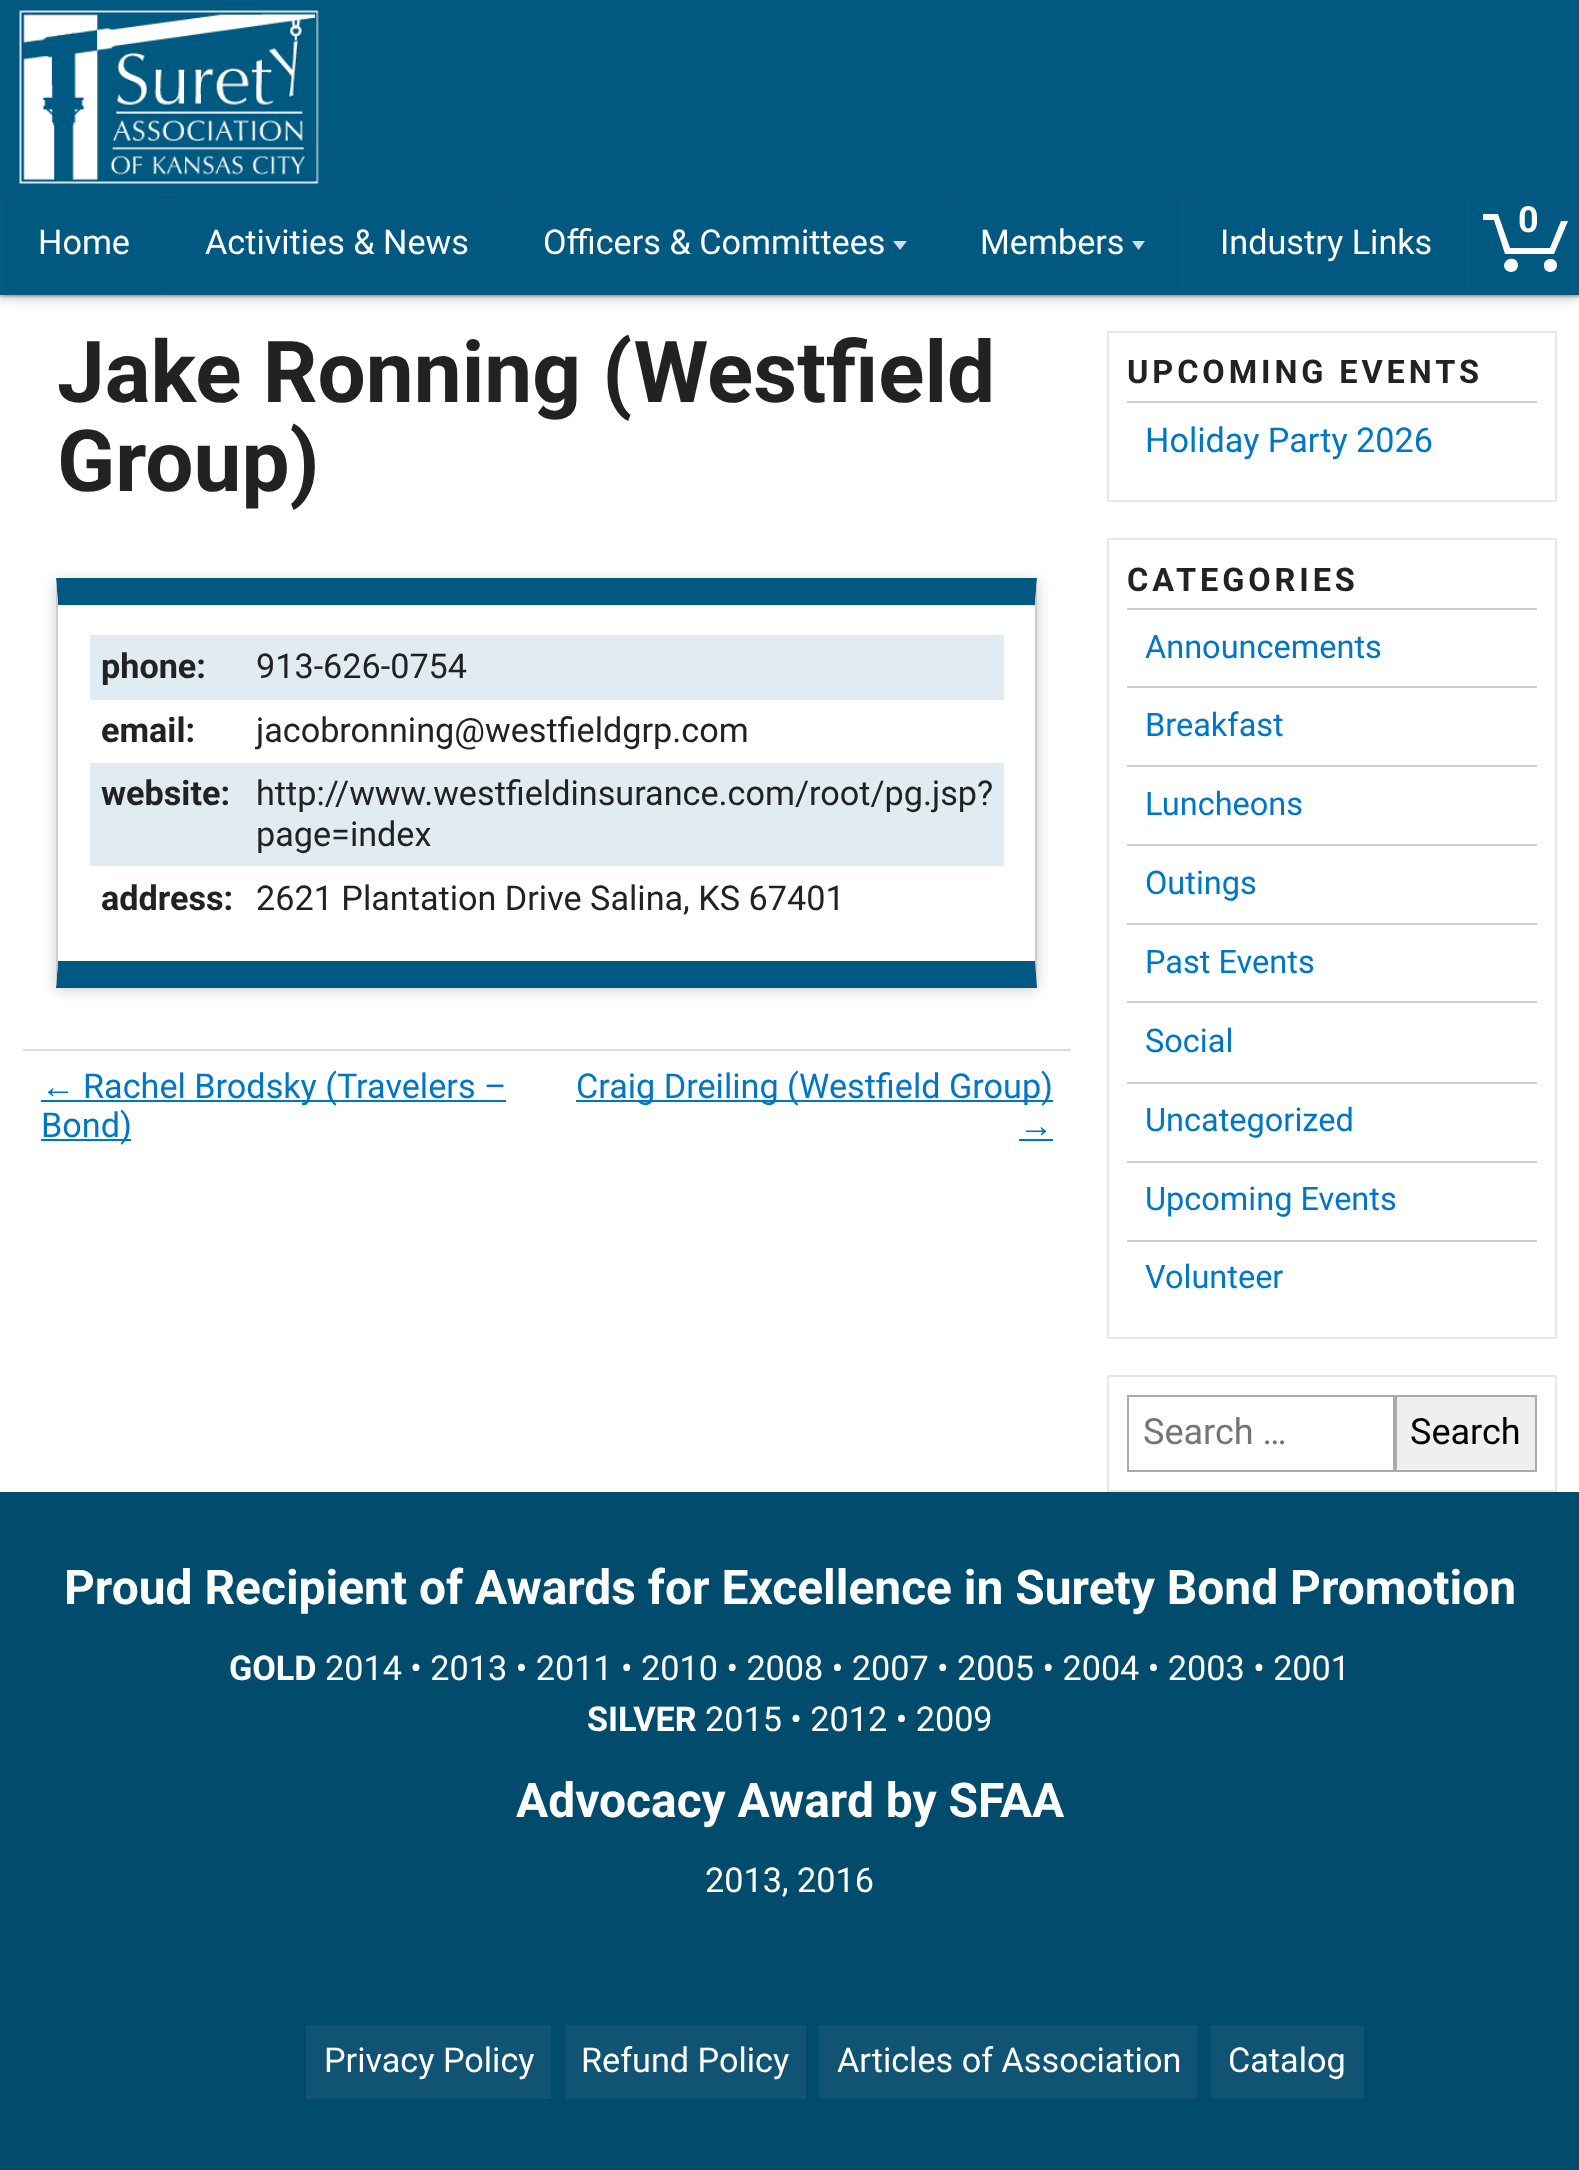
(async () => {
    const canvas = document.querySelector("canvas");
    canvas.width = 1579;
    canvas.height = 2170;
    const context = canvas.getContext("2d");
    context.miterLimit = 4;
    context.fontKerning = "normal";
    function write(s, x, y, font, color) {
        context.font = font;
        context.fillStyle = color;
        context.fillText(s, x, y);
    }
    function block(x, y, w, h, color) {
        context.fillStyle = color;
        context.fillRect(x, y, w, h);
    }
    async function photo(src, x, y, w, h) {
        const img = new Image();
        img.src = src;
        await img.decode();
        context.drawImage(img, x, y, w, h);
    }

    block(0, 0, 1579, 2170, "rgb(255, 255, 255)");
    context.fillStyle = "rgba(0, 0, 0, 0.25)";
    context.filter = "blur(7px)";
    context.beginPath();
    context.rect(0, 2, 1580, 295);
    context.fill();
    context.filter = "none";
    context.filter = "blur(1px)";
    context.beginPath();
    context.rect(0, 2, 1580, 295);
    context.fill();
    context.filter = "none";
    block(0, 0, 1579, 295, "rgb(1, 89, 129)");
    await photo("media/1.png", 19, 10, 300, 174);
    context.fillStyle = "rgb(255, 255, 255)";
    context.beginPath();
    context.moveTo(1518, 265);
    context.bezierCurveTo(1518, 274, 1505, 274, 1504, 266);
    context.bezierCurveTo(1504, 257, 1518, 256, 1518, 265);
    context.closePath();
    context.moveTo(1557, 265);
    context.bezierCurveTo(1557, 274, 1544, 274, 1544, 266);
    context.bezierCurveTo(1543, 257, 1557, 257, 1557, 265);
    context.closePath();
    context.moveTo(1505, 254);
    context.lineTo(1494, 220);
    context.lineTo(1483, 220);
    context.lineTo(1483, 214);
    context.lineTo(1498, 214);
    context.lineTo(1510, 248);
    context.lineTo(1550, 248);
    context.lineTo(1561, 221);
    context.lineTo(1568, 221);
    context.lineTo(1554, 254);
    context.closePath();
    context.fill("evenodd");
    write("0", 1518, 232, "bold 36px Roboto", "rgb(255, 255, 255)");
    context.strokeStyle = "rgb(11, 90, 126)";
    context.lineWidth = 2;
    context.strokeRect(1, 195, 167, 99);
    write("Home", 38, 254, "34.2px Roboto", "rgb(255, 255, 255)");
    context.fillStyle = "rgb(11, 90, 126)";
    context.beginPath();
    context.moveTo(169, 194);
    context.lineTo(506, 194);
    context.lineTo(504, 196);
    context.lineTo(169, 196);
    context.closePath();
    context.fill();
    context.fillStyle = "rgba(100, 100, 100, 0.1)";
    context.beginPath();
    context.moveTo(506, 194);
    context.lineTo(506, 295);
    context.lineTo(504, 292);
    context.lineTo(504, 196);
    context.closePath();
    context.fill();
    context.beginPath();
    context.moveTo(506, 295);
    context.lineTo(169, 295);
    context.lineTo(169, 292);
    context.lineTo(504, 292);
    context.closePath();
    context.fill();
    write("Activities & News", 205, 254, "34.2px Roboto", "rgb(255, 255, 255)");
    context.fillStyle = "rgb(11, 90, 126)";
    context.beginPath();
    context.moveTo(506, 194);
    context.lineTo(945, 194);
    context.lineTo(943, 196);
    context.lineTo(506, 196);
    context.closePath();
    context.fill();
    context.fillStyle = "rgba(100, 100, 100, 0.1)";
    context.beginPath();
    context.moveTo(945, 194);
    context.lineTo(945, 295);
    context.lineTo(943, 292);
    context.lineTo(943, 196);
    context.closePath();
    context.fill();
    context.beginPath();
    context.moveTo(945, 295);
    context.lineTo(506, 295);
    context.lineTo(506, 292);
    context.lineTo(943, 292);
    context.closePath();
    context.fill();
    write("Officers & Committees", 543, 254, "34.2px Roboto", "rgb(255, 255, 255)");
    context.fillStyle = "rgb(204, 222, 230)";
    context.beginPath();
    context.moveTo(893, 241);
    context.lineTo(907, 241);
    context.lineTo(900, 250);
    context.closePath();
    context.fill();
    context.fillStyle = "rgb(11, 90, 126)";
    context.beginPath();
    context.moveTo(945, 194);
    context.lineTo(1184, 194);
    context.lineTo(1181, 196);
    context.lineTo(945, 196);
    context.closePath();
    context.fill();
    context.fillStyle = "rgba(100, 100, 100, 0.1)";
    context.beginPath();
    context.moveTo(1184, 194);
    context.lineTo(1184, 295);
    context.lineTo(1181, 292);
    context.lineTo(1181, 196);
    context.closePath();
    context.fill();
    context.beginPath();
    context.moveTo(1184, 295);
    context.lineTo(945, 295);
    context.lineTo(945, 292);
    context.lineTo(1181, 292);
    context.closePath();
    context.fill();
    write("Members", 980, 254, "34.2px Roboto", "rgb(255, 255, 255)");
    context.fillStyle = "rgb(204, 222, 230)";
    context.beginPath();
    context.moveTo(1132, 241);
    context.lineTo(1145, 241);
    context.lineTo(1138.5, 250);
    context.closePath();
    context.fill();
    context.fillStyle = "rgb(11, 90, 126)";
    context.beginPath();
    context.moveTo(1184, 194);
    context.lineTo(1469, 194);
    context.lineTo(1467, 196);
    context.lineTo(1184, 196);
    context.closePath();
    context.fill();
    context.fillStyle = "rgba(100, 100, 100, 0.1)";
    context.beginPath();
    context.moveTo(1469, 194);
    context.lineTo(1469, 295);
    context.lineTo(1467, 292);
    context.lineTo(1467, 196);
    context.closePath();
    context.fill();
    context.beginPath();
    context.moveTo(1469, 295);
    context.lineTo(1184, 295);
    context.lineTo(1184, 292);
    context.lineTo(1467, 292);
    context.closePath();
    context.fill();
    write("Industry Links", 1220, 254, "34.2px Roboto", "rgb(255, 255, 255)");
    write("Jake Ronning (Westfield", 57, 402, "bold 85.5px Roboto", "rgb(34, 34, 34)");
    write("Group)", 57, 491, "bold 85.5px Roboto", "rgb(34, 34, 34)");
    context.save();
    context.beginPath();
    context.moveTo(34, 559);
    context.lineTo(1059, 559);
    context.lineTo(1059, 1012);
    context.lineTo(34, 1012);
    context.closePath();
    context.moveTo(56, 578);
    context.lineTo(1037, 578);
    context.lineTo(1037, 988);
    context.lineTo(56, 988);
    context.closePath();
    context.clip("evenodd");
    context.fillStyle = "rgba(0, 0, 0, 0.2)";
    context.filter = "blur(7px)";
    context.beginPath();
    context.rect(56, 581, 981, 409);
    context.fill();
    context.filter = "none";
    context.restore();
    context.fillStyle = "rgb(1, 89, 129)";
    context.beginPath();
    context.moveTo(56, 578);
    context.lineTo(1037, 578);
    context.lineTo(1035, 605);
    context.lineTo(58, 605);
    context.closePath();
    context.fill();
    context.fillStyle = "rgb(204, 204, 204)";
    context.beginPath();
    context.moveTo(1037, 578);
    context.lineTo(1037, 988);
    context.lineTo(1035, 961);
    context.lineTo(1035, 605);
    context.closePath();
    context.fill();
    context.fillStyle = "rgb(1, 89, 129)";
    context.beginPath();
    context.moveTo(1037, 988);
    context.lineTo(56, 988);
    context.lineTo(58, 961);
    context.lineTo(1035, 961);
    context.closePath();
    context.fill();
    context.fillStyle = "rgb(204, 204, 204)";
    context.beginPath();
    context.moveTo(56, 988);
    context.lineTo(56, 578);
    context.lineTo(58, 605);
    context.lineTo(58, 961);
    context.closePath();
    context.fill();
    block(90, 635, 914, 65, "rgb(225, 235, 242)");
    write("phone:", 101, 678, "bold 34.2px Roboto", "rgb(34, 34, 34)");
    write("913-626-0754", 256, 678, "34.2px Roboto", "rgb(34, 34, 34)");
    write("email:", 101, 742, "bold 34.2px Roboto", "rgb(34, 34, 34)");
    write("jacobronning@westfieldgrp.com", 256, 742, "34.2px Roboto", "rgb(34, 34, 34)");
    block(90, 763, 914, 103, "rgb(225, 235, 242)");
    write("website:", 101, 805, "bold 34.2px Roboto", "rgb(34, 34, 34)");
    write("http://www.westfieldinsurance.com/root/pg.jsp?", 256, 805, "34.2px Roboto", "rgb(34, 34, 34)");
    write("page=index", 256, 846, "34.2px Roboto", "rgb(34, 34, 34)");
    write("address:", 101, 910, "bold 34.2px Roboto", "rgb(34, 34, 34)");
    write("2621 Plantation Drive Salina, KS 67401", 256, 910, "34.2px Roboto", "rgb(34, 34, 34)");
    block(23, 1049, 1048, 2, "rgb(221, 221, 221)");
    write("←", 41, 1098, "34.2px Liberation Sans", "rgb(0, 119, 198)");
    block(41, 1100, 465, 2, "rgb(0, 119, 198)");
    write("Rachel Brodsky (Travelers –", 83, 1098, "34.2px Roboto", "rgb(0, 119, 198)");
    block(41, 1139, 90, 2, "rgb(0, 119, 198)");
    write("Bond)", 41, 1137, "34.2px Roboto", "rgb(0, 119, 198)");
    block(576, 1100, 477, 2, "rgb(0, 119, 198)");
    write("Craig Dreiling (Westfield Group)", 576, 1098, "34.2px Roboto", "rgb(0, 119, 198)");
    write("→", 1019, 1137, "34.2px Liberation Sans", "rgb(0, 119, 198)");
    block(1019, 1139, 34, 2, "rgb(0, 119, 198)");
    context.strokeStyle = "rgb(232, 232, 232)";
    context.strokeRect(1108, 332, 448, 169);
    context.letterSpacing = "3.9px";
    write("UPCOMING EVENTS", 1127, 383, "bold 32.5px Roboto", "rgb(34, 34, 34)");
    block(1127, 401, 410, 2, "rgb(204, 204, 204)");
    context.letterSpacing = "0px";
    write("Holiday Party 2026", 1145, 452, "34.2px Roboto", "rgb(0, 119, 198)");
    context.strokeRect(1108, 539, 448, 799);
    context.letterSpacing = "3.9px";
    write("CATEGORIES", 1127, 591, "bold 32.5px Roboto", "rgb(34, 34, 34)");
    block(1127, 608, 410, 2, "rgb(204, 204, 204)");
    context.letterSpacing = "0px";
    write("Announcements", 1145, 658, "32.5px Roboto", "rgb(0, 119, 198)");
    block(1127, 686, 410, 2, "rgb(204, 204, 204)");
    write("Breakfast", 1145, 736, "32.5px Roboto", "rgb(0, 119, 198)");
    block(1127, 765, 410, 2, "rgb(204, 204, 204)");
    write("Luncheons", 1145, 815, "32.5px Roboto", "rgb(0, 119, 198)");
    block(1127, 844, 410, 2, "rgb(204, 204, 204)");
    write("Outings", 1145, 894, "32.5px Roboto", "rgb(0, 119, 198)");
    block(1127, 923, 410, 2, "rgb(204, 204, 204)");
    write("Past Events", 1145, 973, "32.5px Roboto", "rgb(0, 119, 198)");
    block(1127, 1001, 410, 2, "rgb(204, 204, 204)");
    write("Social", 1145, 1052, "32.5px Roboto", "rgb(0, 119, 198)");
    block(1127, 1082, 410, 2, "rgb(204, 204, 204)");
    write("Uncategorized", 1145, 1131, "32.5px Roboto", "rgb(0, 119, 198)");
    block(1127, 1161, 410, 2, "rgb(204, 204, 204)");
    write("Upcoming Events", 1145, 1210, "32.5px Roboto", "rgb(0, 119, 198)");
    block(1127, 1240, 410, 2, "rgb(204, 204, 204)");
    write("Volunteer", 1145, 1288, "32.5px Roboto", "rgb(0, 119, 198)");
    context.strokeRect(1108, 1376, 448, 115);
    context.strokeStyle = "rgb(170, 170, 170)";
    context.strokeRect(1128, 1396, 266, 75);
    write("Search …", 1143, 1444, "36px Roboto", "rgb(117, 117, 117)");
    context.fillStyle = "rgb(239, 239, 239)";
    context.beginPath();
    context.rect(1396, 1396, 140, 75);
    context.fill();
    context.stroke();
    write("Search", 1410, 1444, "36px Roboto", "rgb(0, 0, 0)");
    block(0, 1492, 1579, 678, "rgb(1, 75, 109)");
    write("Proud Recipient of Awards for Excellence in Surety Bond Promotion", 64, 1604, "bold 47.9px Roboto", "rgb(255, 255, 255)");
    write("GOLD", 229, 1680, "bold 34.2px Roboto", "rgb(255, 255, 255)");
    write("2014 • 2013 • 2011 • 2010 • 2008 • 2007 • 2005 • 2004 • 2003 • 2001", 325, 1680, "34.2px Roboto", "rgb(255, 255, 255)");
    write("SILVER", 587, 1731, "bold 34.2px Roboto", "rgb(255, 255, 255)");
    write("2015 • 2012 • 2009", 705, 1731, "34.2px Roboto", "rgb(255, 255, 255)");
    write("Advocacy Award by SFAA", 516, 1817, "bold 47.9px Roboto", "rgb(255, 255, 255)");
    write("2013, 2016", 705, 1892, "34.2px Roboto", "rgb(255, 255, 255)");
    block(306, 2025, 245, 74, "rgb(16, 83, 114)");
    write("Privacy Policy", 324, 2072, "34.2px Roboto", "rgb(255, 255, 255)");
    block(565, 2025, 241, 74, "rgb(16, 83, 114)");
    write("Refund Policy", 581, 2072, "34.2px Roboto", "rgb(255, 255, 255)");
    block(819, 2025, 378, 74, "rgb(16, 83, 114)");
    write("Articles of Association", 837, 2072, "34.2px Roboto", "rgb(255, 255, 255)");
    block(1211, 2025, 153, 74, "rgb(16, 83, 114)");
    write("Catalog", 1228, 2072, "34.2px Roboto", "rgb(255, 255, 255)");
})();
